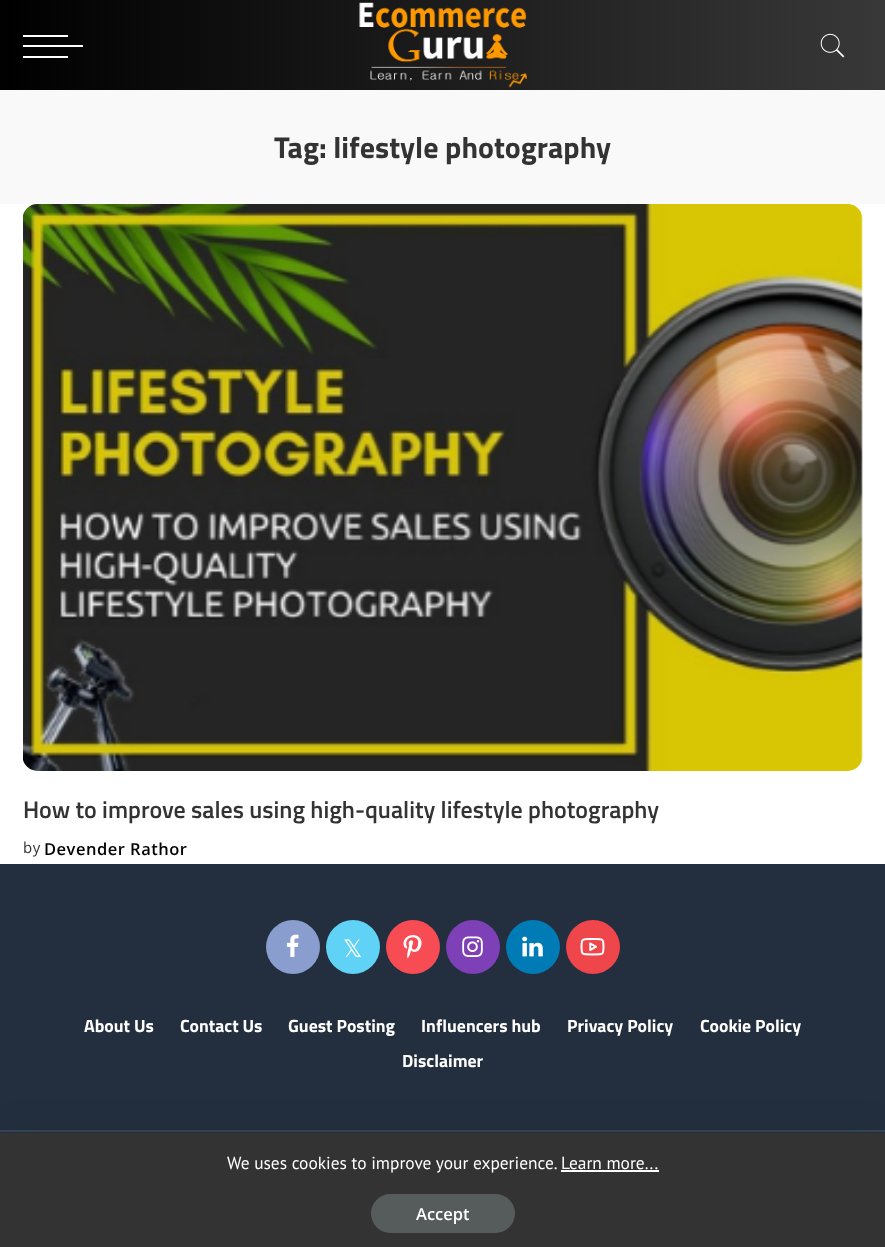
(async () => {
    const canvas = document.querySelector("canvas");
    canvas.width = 885;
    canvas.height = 1247;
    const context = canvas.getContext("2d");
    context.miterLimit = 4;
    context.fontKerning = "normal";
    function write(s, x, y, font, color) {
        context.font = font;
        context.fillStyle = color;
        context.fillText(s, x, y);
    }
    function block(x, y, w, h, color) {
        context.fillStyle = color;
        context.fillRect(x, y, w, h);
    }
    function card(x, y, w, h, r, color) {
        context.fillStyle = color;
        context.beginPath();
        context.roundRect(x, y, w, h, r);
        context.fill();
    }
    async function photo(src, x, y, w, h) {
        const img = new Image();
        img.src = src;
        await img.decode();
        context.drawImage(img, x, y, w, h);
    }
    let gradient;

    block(0, 0, 885, 1247, "rgb(255, 255, 255)");
    gradient = context.createLinearGradient(0, 45, 885, 45);
    gradient.addColorStop(0, "rgb(0, 0, 0)");
    gradient.addColorStop(1, "rgb(56, 56, 56)");
    context.fillStyle = gradient;
    context.fillRect(0, 0, 885, 90);
    block(23, 45, 60, 2, "rgb(255, 255, 255)");
    block(23, 35, 45, 2, "rgb(255, 255, 255)");
    block(23, 56, 45, 2, "rgb(255, 255, 255)");
    await photo("media/1.png", 359, 2, 168, 86);
    await photo("media/2.png", 820, 33, 25, 25);
    block(0, 90, 885, 114, "rgb(249, 249, 249)");
    write("Tag: lifestyle photography", 274, 158, "bold 30px Titillium Web", "rgb(51, 51, 51)");
    await photo("media/3.png", 23, 204, 840, 567);
    write("How to improve sales using high-quality lifestyle photography", 23, 818, "600 24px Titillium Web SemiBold", "rgb(51, 51, 51)");
    context.letterSpacing = "0.5px";
    write("by", 23, 853, "15px Open Sans", "rgb(51, 51, 51)");
    write("Devender Rathor", 44, 855, "600 16.5px Open Sans", "rgb(0, 0, 0)");
    block(0, 864, 885, 269, "rgb(35, 47, 62)");
    context.fillStyle = "rgb(137, 157, 206)";
    context.beginPath();
    context.arc(293, 947, 27, 0, Math.PI * 2);
    context.fill();
    await photo("media/4.png", 286, 934, 13, 23);
    context.fillStyle = "rgb(96, 210, 245)";
    context.beginPath();
    context.arc(353, 947, 27, 0, Math.PI * 2);
    context.fill();
    context.letterSpacing = "0px";
    write("𝕏", 343, 957, "24px DejaVu Sans", "rgb(255, 255, 255)");
    context.fillStyle = "rgb(247, 76, 83)";
    context.beginPath();
    context.arc(413, 947, 27, 0, Math.PI * 2);
    context.fill();
    await photo("media/5.png", 403, 935, 19, 24);
    context.fillStyle = "rgb(126, 64, 182)";
    context.beginPath();
    context.arc(473, 947, 27, 0, Math.PI * 2);
    context.fill();
    await photo("media/6.png", 462, 936, 21, 21);
    context.fillStyle = "rgb(0, 123, 182)";
    context.beginPath();
    context.arc(533, 947, 27, 0, Math.PI * 2);
    context.fill();
    await photo("media/7.png", 522, 936, 21, 21);
    context.fillStyle = "rgb(239, 70, 75)";
    context.beginPath();
    context.arc(593, 947, 27, 0, Math.PI * 2);
    context.fill();
    await photo("media/8.png", 580, 938, 25, 18);
    write("About Us", 84, 1032, "bold 17.75px Titillium Web", "rgb(255, 255, 255)");
    write("Contact Us", 180, 1032, "bold 17.75px Titillium Web", "rgb(255, 255, 255)");
    write("Guest Posting", 288, 1032, "bold 17.75px Titillium Web", "rgb(255, 255, 255)");
    write("Influencers hub", 421, 1032, "bold 17.75px Titillium Web", "rgb(255, 255, 255)");
    write("Privacy Policy", 567, 1032, "bold 17.75px Titillium Web", "rgb(255, 255, 255)");
    write("Cookie Policy", 700, 1032, "bold 17.75px Titillium Web", "rgb(255, 255, 255)");
    write("Disclaimer", 402, 1067, "bold 17.75px Titillium Web", "rgb(255, 255, 255)");
    block(0, 1130, 885, 2, "rgb(57, 68, 81)");
    context.fillStyle = "rgba(0, 0, 0, 0.07)";
    context.filter = "blur(22.5px)";
    context.beginPath();
    context.rect(0, 1139, 885, 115);
    context.fill();
    context.filter = "none";
    block(0, 1133, 885, 114, "rgb(51, 51, 51)");
    write("We uses cookies to improve your experience.", 227, 1169, "17.4px PT Sans", "rgb(255, 255, 255)");
    write("Learn more...", 561, 1169, "17.4px PT Sans", "rgb(255, 255, 255)");
    block(561, 1170, 98, 2, "rgb(255, 255, 255)");
    card(371, 1194, 144, 39, 19.5, "rgb(86, 92, 92)");
    write("Accept", 416, 1220, "600 16.5px Open Sans", "rgb(255, 255, 255)");
})();
